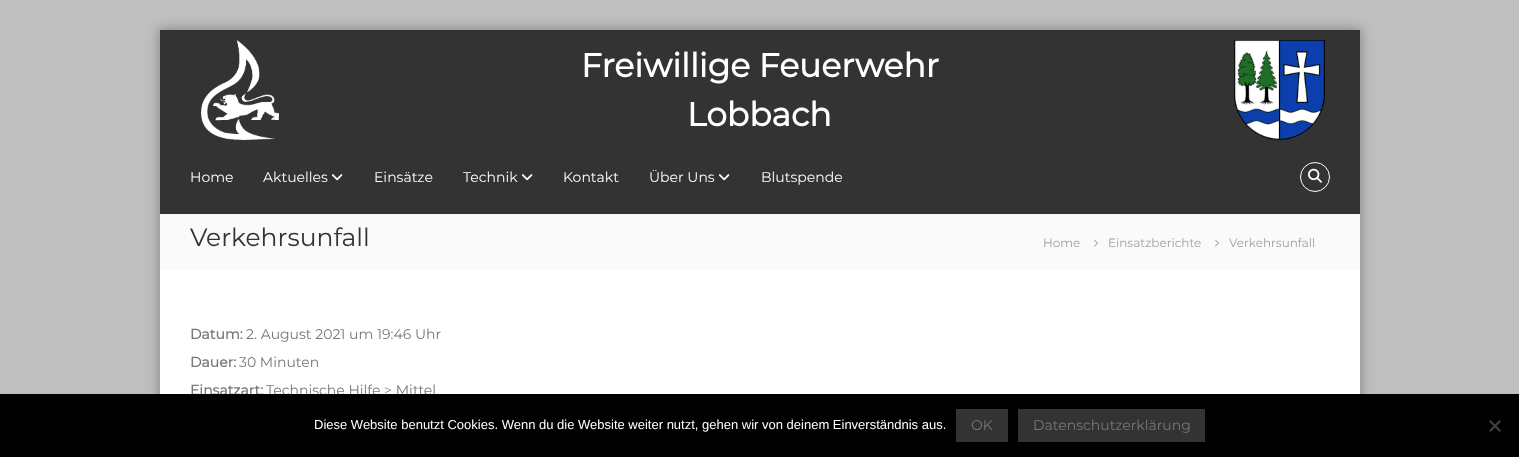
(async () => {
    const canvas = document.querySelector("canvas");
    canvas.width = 1519;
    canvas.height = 457;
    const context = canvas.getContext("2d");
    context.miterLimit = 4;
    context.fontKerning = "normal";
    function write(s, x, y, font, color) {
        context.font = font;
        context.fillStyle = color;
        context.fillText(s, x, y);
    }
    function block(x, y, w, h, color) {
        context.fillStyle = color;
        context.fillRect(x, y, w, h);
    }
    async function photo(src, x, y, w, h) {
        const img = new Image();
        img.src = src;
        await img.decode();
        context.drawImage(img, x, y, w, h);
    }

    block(0, 0, 1519, 457, "rgb(191, 191, 191)");
    context.fillStyle = "rgba(0, 0, 0, 0.3)";
    context.filter = "blur(6px)";
    context.beginPath();
    context.rect(159, 29, 1202, 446);
    context.fill();
    context.filter = "none";
    block(160, 270, 1200, 124, "rgb(255, 255, 255)");
    block(160, 30, 1200, 184, "rgb(51, 51, 51)");
    await photo("media/1.png", 201, 40, 78, 100);
    write("Freiwillige Feuerwehr", 581, 77, "bold 33px Montserrat", "rgb(255, 255, 255)");
    write("Lobbach", 687, 126, "bold 33px Montserrat", "rgb(255, 255, 255)");
    await photo("media/2.png", 1234, 40, 91, 100);
    write("Home", 190, 182, "100 14px Montserrat", "rgb(255, 255, 255)");
    write("Aktuelles", 263, 182, "100 14px Montserrat", "rgb(255, 255, 255)");
    await photo("media/3.png", 332, 174, 11, 7);
    write("Einsätze", 374, 182, "100 14px Montserrat", "rgb(255, 255, 255)");
    write("Technik", 463, 182, "100 14px Montserrat", "rgb(255, 255, 255)");
    await photo("media/3.png", 522, 174, 11, 7);
    write("Kontakt", 563, 182, "100 14px Montserrat", "rgb(255, 255, 255)");
    write("Über Uns", 649, 182, "100 14px Montserrat", "rgb(255, 255, 255)");
    await photo("media/3.png", 719, 174, 11, 7);
    write("Blutspende", 761, 182, "100 14px Montserrat", "rgb(255, 255, 255)");
    context.beginPath();
    context.arc(1315, 177, 14.5, 0, Math.PI * 2);
    context.strokeStyle = "rgb(255, 255, 255)";
    context.stroke();
    await photo("media/4.png", 1308, 168, 14, 15);
    block(160, 214, 1200, 56, "rgb(250, 250, 250)");
    write("Verkehrsunfall", 190, 246, "100 25px Montserrat", "rgb(51, 51, 51)");
    write("Home", 1043, 247, "100 12px Montserrat", "rgb(161, 161, 161)");
    await photo("media/5.png", 1094, 239, 4, 8);
    write("Einsatzberichte", 1108, 247, "100 12px Montserrat", "rgb(161, 161, 161)");
    await photo("media/5.png", 1215, 239, 4, 8);
    write("Verkehrsunfall", 1229, 247, "100 12px Montserrat", "rgb(161, 161, 161)");
    write("Datum:", 190, 339, "bold 14px Montserrat", "rgb(119, 119, 119)");
    write("2. August 2021 um 19:46 Uhr", 246, 339, "100 14px Montserrat", "rgb(119, 119, 119)");
    write("Dauer:", 190, 367, "bold 14px Montserrat", "rgb(119, 119, 119)");
    write("30 Minuten", 239, 367, "100 14px Montserrat", "rgb(119, 119, 119)");
    write("Einsatzart:", 190, 395, "bold 14px Montserrat", "rgb(119, 119, 119)");
    write("Technische Hilfe > Mittel", 266, 395, "100 14px Montserrat", "rgb(119, 119, 119)");
    block(0, 394, 1519, 63, "rgb(0, 0, 0)");
    write("Diese Website benutzt Cookies. Wenn du die Website weiter nutzt, gehen wir von deinem Einverständnis aus.", 314, 429, "13px Liberation Sans", "rgb(255, 255, 255)");
    block(956, 409, 52, 33, "rgb(51, 51, 51)");
    write("OK", 971, 430, "100 14px Montserrat", "rgb(119, 119, 119)");
    block(1018, 409, 187, 33, "rgb(51, 51, 51)");
    write("Datenschutzerklärung", 1033, 430, "100 14px Montserrat", "rgb(119, 119, 119)");
    context.fillStyle = "rgb(64, 64, 64)";
    context.beginPath();
    context.moveTo(1499.5, 420);
    context.lineTo(1501, 421.5);
    context.lineTo(1490.5, 432);
    context.lineTo(1489, 430.5);
    context.closePath();
    context.fill();
    context.beginPath();
    context.moveTo(1489, 421.5);
    context.lineTo(1490.5, 420);
    context.lineTo(1501, 430.5);
    context.lineTo(1499.5, 432);
    context.closePath();
    context.fill();
})();
